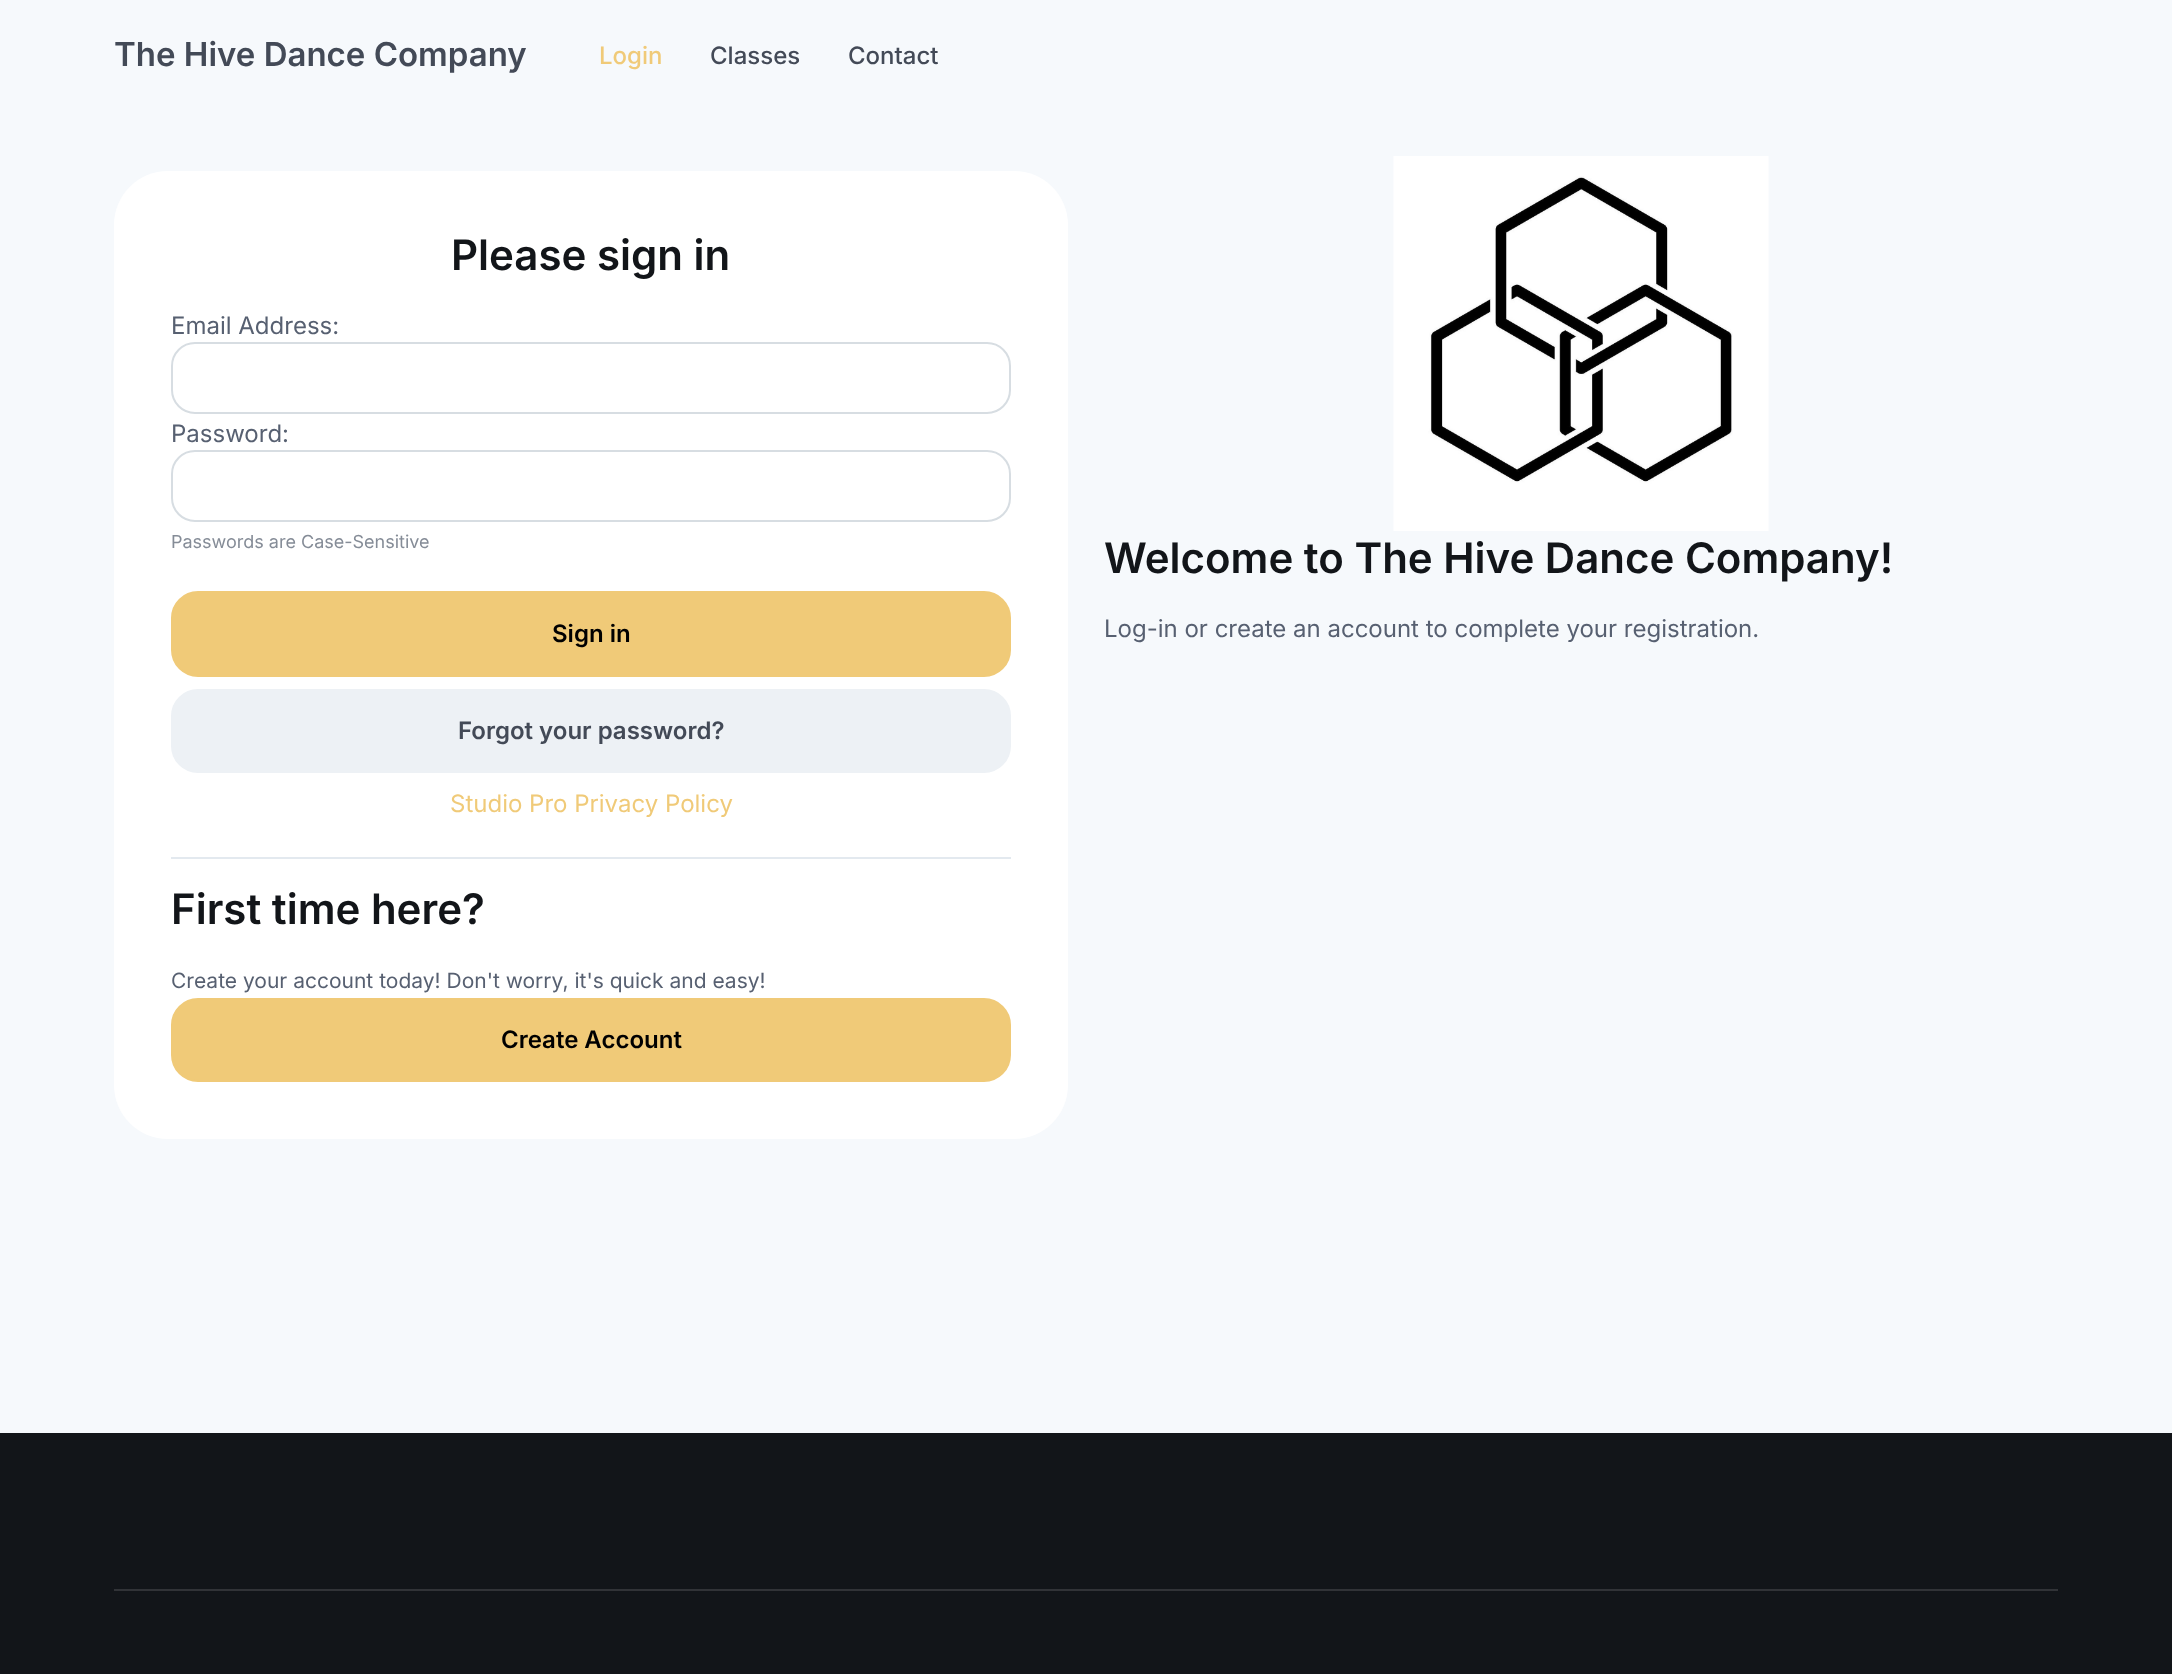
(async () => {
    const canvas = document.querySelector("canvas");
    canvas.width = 2172;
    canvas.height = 1674;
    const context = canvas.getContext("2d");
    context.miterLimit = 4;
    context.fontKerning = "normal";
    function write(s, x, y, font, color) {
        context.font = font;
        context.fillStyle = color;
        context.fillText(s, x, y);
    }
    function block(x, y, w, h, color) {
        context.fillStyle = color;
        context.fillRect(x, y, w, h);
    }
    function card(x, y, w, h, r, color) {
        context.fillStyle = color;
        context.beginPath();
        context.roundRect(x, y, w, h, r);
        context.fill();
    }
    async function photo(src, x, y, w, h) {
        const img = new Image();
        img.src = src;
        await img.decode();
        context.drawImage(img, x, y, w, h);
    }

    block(0, 0, 2172, 1674, "rgb(246, 249, 252)");
    write("The Hive Dance Company", 114, 66, "600 33px Inter", "rgb(67, 74, 87)");
    write("Login", 599, 64, "500 24px Inter", "rgb(240, 202, 120)");
    write("Classes", 710, 64, "500 24px Inter", "rgb(67, 74, 87)");
    write("Contact", 848, 64, "500 24px Inter", "rgb(67, 74, 87)");
    card(114, 171, 954, 968, 54, "rgb(255, 255, 255)");
    write("Please sign in", 451, 270, "600 42px Inter", "rgb(18, 21, 25)");
    write("Email Address:", 171, 334, "24px Inter", "rgb(87, 96, 113)");
    context.beginPath();
    context.roundRect(172, 343, 838, 70, 23);
    context.strokeStyle = "rgb(215, 221, 226)";
    context.lineWidth = 2;
    context.stroke();
    write("Password:", 171, 442, "24px Inter", "rgb(87, 96, 113)");
    context.beginPath();
    context.roundRect(172, 451, 838, 70, 23);
    context.stroke();
    write("Passwords are Case-Sensitive", 171, 548, "18px Inter", "rgb(133, 140, 151)");
    context.fillStyle = "rgb(240, 202, 120)";
    context.beginPath();
    context.roundRect(172, 592, 838, 84, 26);
    context.fill();
    context.strokeStyle = "rgb(240, 202, 120)";
    context.stroke();
    write("Sign in", 552, 642, "600 24px Inter", "rgb(0, 0, 0)");
    context.fillStyle = "rgb(237, 241, 245)";
    context.beginPath();
    context.roundRect(172, 690, 838, 82, 26);
    context.fill();
    context.strokeStyle = "rgb(237, 241, 245)";
    context.stroke();
    write("Forgot your password?", 458, 739, "600 24px Inter", "rgb(67, 74, 87)");
    write("Studio Pro Privacy Policy", 450, 812, "24px Inter", "rgb(240, 202, 120)");
    block(171, 857, 840, 2, "rgb(227, 233, 239)");
    write("First time here?", 171, 924, "600 42px Inter", "rgb(18, 21, 25)");
    write("Create your account today! Don't worry, it's quick and easy!", 171, 988, "21px Inter", "rgb(87, 96, 113)");
    context.fillStyle = "rgb(240, 202, 120)";
    context.beginPath();
    context.roundRect(172, 999, 838, 82, 26);
    context.fill();
    context.strokeStyle = "rgb(240, 202, 120)";
    context.stroke();
    write("Create Account", 501, 1048, "600 24px Inter", "rgb(0, 0, 0)");
    await photo("media/1.png", 1393, 156, 376, 375);
    write("Welcome to The Hive Dance Company!", 1104, 573, "600 42px Inter", "rgb(18, 21, 25)");
    write("Log-in or create an account to complete your registration.", 1104, 637, "24px Inter", "rgb(87, 96, 113)");
    block(0, 1433, 2172, 241, "rgb(18, 21, 25)");
    block(114, 1589, 1944, 2, "rgb(49, 51, 55)");
})();
